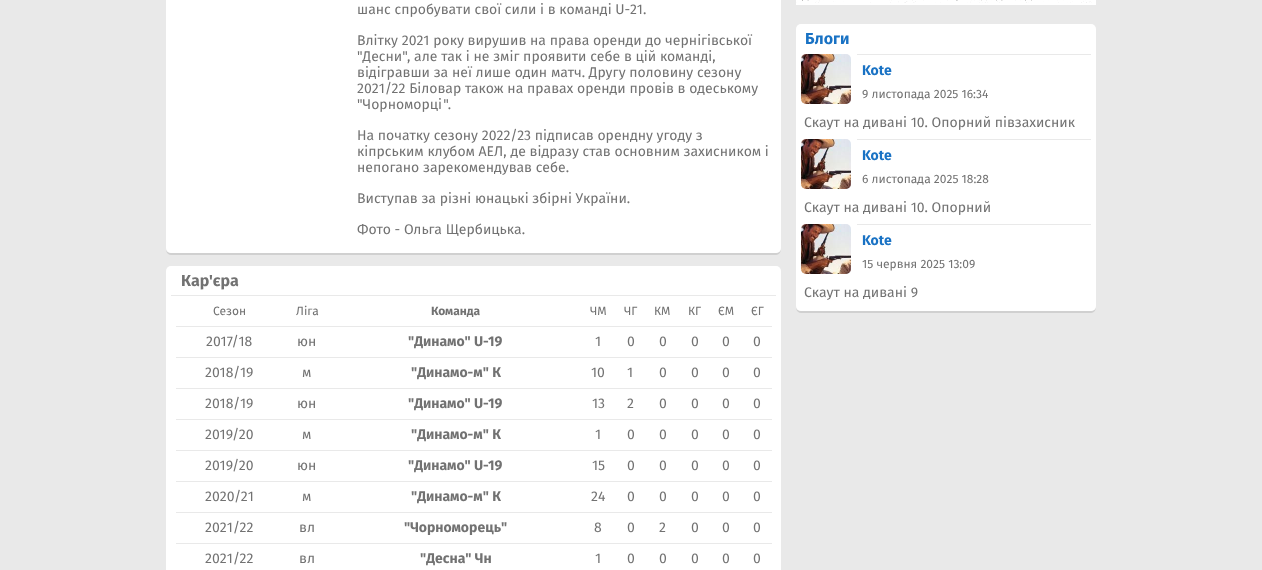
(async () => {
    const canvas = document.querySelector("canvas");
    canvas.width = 1262;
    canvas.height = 570;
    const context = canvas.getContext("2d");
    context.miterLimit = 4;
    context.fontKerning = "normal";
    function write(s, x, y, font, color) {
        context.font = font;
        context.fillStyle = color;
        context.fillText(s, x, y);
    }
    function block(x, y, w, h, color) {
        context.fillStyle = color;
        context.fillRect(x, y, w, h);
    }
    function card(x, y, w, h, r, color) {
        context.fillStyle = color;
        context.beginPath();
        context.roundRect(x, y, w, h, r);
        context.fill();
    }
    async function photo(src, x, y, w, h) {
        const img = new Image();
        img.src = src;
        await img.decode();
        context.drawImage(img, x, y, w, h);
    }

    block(0, 0, 1262, 570, "rgb(233, 233, 233)");
    context.fillStyle = "rgb(208, 208, 208)";
    context.beginPath();
    context.moveTo(166, 248);
    context.bezierCurveTo(166, 251, 167, 255, 171, 255);
    context.lineTo(776, 255);
    context.bezierCurveTo(780, 255, 781, 251, 781, 248);
    context.bezierCurveTo(781, 251, 779, 253, 776, 253);
    context.lineTo(171, 253);
    context.bezierCurveTo(168, 253, 166, 251, 166, 248);
    context.closePath();
    context.fill();
    card(166, -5, 615, 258, 5, "rgb(255, 255, 255)");
    write("шанс спробувати свої сили і в команді U-21.", 357, 14, "14px Fira Sans", "rgb(114, 114, 114)");
    write("Влітку 2021 року вирушив на права оренди до чернігівської", 357, 45, "14px Fira Sans", "rgb(114, 114, 114)");
    write("\"Десни\", але так і не зміг проявити себе в цій команді,", 357, 61, "14px Fira Sans", "rgb(114, 114, 114)");
    write("відігравши за неї лише один матч. Другу половину сезону", 357, 77, "14px Fira Sans", "rgb(114, 114, 114)");
    write("2021/22 Біловар також на правах оренди провів в одеському", 357, 93, "14px Fira Sans", "rgb(114, 114, 114)");
    write("\"Чорноморці\".", 357, 109, "14px Fira Sans", "rgb(114, 114, 114)");
    write("На початку сезону 2022/23 підписав орендну угоду з", 357, 140, "14px Fira Sans", "rgb(114, 114, 114)");
    write("кіпрським клубом АЕЛ, де відразу став основним захисником і", 357, 156, "14px Fira Sans", "rgb(114, 114, 114)");
    write("непогано зарекомендував себе.", 357, 172, "14px Fira Sans", "rgb(114, 114, 114)");
    write("Виступав за різні юнацькі збірні України.", 357, 203, "14px Fira Sans", "rgb(114, 114, 114)");
    write("Фото - Ольга Щербицька.", 357, 234, "14px Fira Sans", "rgb(114, 114, 114)");
    card(166, 266, 615, 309, 5, "rgb(255, 255, 255)");
    block(171, 295, 605, 1, "rgb(233, 233, 233)");
    write("Кар'єра", 181, 286, "bold 16px Fira Sans", "rgb(114, 114, 114)");
    write("Сезон", 213, 315, "12px Fira Sans", "rgb(114, 114, 114)");
    write("Ліга", 296, 315, "12px Fira Sans", "rgb(114, 114, 114)");
    write("Команда", 431, 315, "bold 12px Fira Sans", "rgb(114, 114, 114)");
    write("ЧМ", 590, 315, "12px Fira Sans", "rgb(114, 114, 114)");
    write("ЧГ", 624, 315, "12px Fira Sans", "rgb(114, 114, 114)");
    write("КМ", 654, 315, "12px Fira Sans", "rgb(114, 114, 114)");
    write("КГ", 688, 315, "12px Fira Sans", "rgb(114, 114, 114)");
    write("ЄМ", 718, 315, "12px Fira Sans", "rgb(114, 114, 114)");
    write("ЄГ", 751, 315, "12px Fira Sans", "rgb(114, 114, 114)");
    block(176, 326, 596, 1, "rgb(233, 233, 233)");
    write("2017/18", 206, 346, "14px Fira Sans", "rgb(114, 114, 114)");
    write("юн", 297, 346, "14px Fira Sans", "rgb(114, 114, 114)");
    write("\"Динамо\" U-19", 408, 346, "bold 14px Fira Sans", "rgb(114, 114, 114)");
    write("1", 595, 346, "14px Fira Sans", "rgb(114, 114, 114)");
    write("0", 627, 346, "14px Fira Sans", "rgb(114, 114, 114)");
    write("0", 659, 346, "14px Fira Sans", "rgb(114, 114, 114)");
    write("0", 691, 346, "14px Fira Sans", "rgb(114, 114, 114)");
    write("0", 722, 346, "14px Fira Sans", "rgb(114, 114, 114)");
    write("0", 753, 346, "14px Fira Sans", "rgb(114, 114, 114)");
    block(176, 357, 596, 1, "rgb(233, 233, 233)");
    write("2018/19", 205, 377, "14px Fira Sans", "rgb(114, 114, 114)");
    write("м", 302, 377, "14px Fira Sans", "rgb(114, 114, 114)");
    write("\"Динамо-м\" К", 411, 377, "bold 14px Fira Sans", "rgb(114, 114, 114)");
    write("10", 591, 377, "14px Fira Sans", "rgb(114, 114, 114)");
    write("1", 627, 377, "14px Fira Sans", "rgb(114, 114, 114)");
    write("0", 659, 377, "14px Fira Sans", "rgb(114, 114, 114)");
    write("0", 691, 377, "14px Fira Sans", "rgb(114, 114, 114)");
    write("0", 722, 377, "14px Fira Sans", "rgb(114, 114, 114)");
    write("0", 753, 377, "14px Fira Sans", "rgb(114, 114, 114)");
    block(176, 388, 596, 1, "rgb(233, 233, 233)");
    write("2018/19", 205, 408, "14px Fira Sans", "rgb(114, 114, 114)");
    write("юн", 297, 408, "14px Fira Sans", "rgb(114, 114, 114)");
    write("\"Динамо\" U-19", 408, 408, "bold 14px Fira Sans", "rgb(114, 114, 114)");
    write("13", 592, 408, "14px Fira Sans", "rgb(114, 114, 114)");
    write("2", 627, 408, "14px Fira Sans", "rgb(114, 114, 114)");
    write("0", 659, 408, "14px Fira Sans", "rgb(114, 114, 114)");
    write("0", 691, 408, "14px Fira Sans", "rgb(114, 114, 114)");
    write("0", 722, 408, "14px Fira Sans", "rgb(114, 114, 114)");
    write("0", 753, 408, "14px Fira Sans", "rgb(114, 114, 114)");
    block(176, 419, 596, 1, "rgb(233, 233, 233)");
    write("2019/20", 205, 439, "14px Fira Sans", "rgb(114, 114, 114)");
    write("м", 302, 439, "14px Fira Sans", "rgb(114, 114, 114)");
    write("\"Динамо-м\" К", 411, 439, "bold 14px Fira Sans", "rgb(114, 114, 114)");
    write("1", 595, 439, "14px Fira Sans", "rgb(114, 114, 114)");
    write("0", 627, 439, "14px Fira Sans", "rgb(114, 114, 114)");
    write("0", 659, 439, "14px Fira Sans", "rgb(114, 114, 114)");
    write("0", 691, 439, "14px Fira Sans", "rgb(114, 114, 114)");
    write("0", 722, 439, "14px Fira Sans", "rgb(114, 114, 114)");
    write("0", 753, 439, "14px Fira Sans", "rgb(114, 114, 114)");
    block(176, 450, 596, 1, "rgb(233, 233, 233)");
    write("2019/20", 205, 470, "14px Fira Sans", "rgb(114, 114, 114)");
    write("юн", 297, 470, "14px Fira Sans", "rgb(114, 114, 114)");
    write("\"Динамо\" U-19", 408, 470, "bold 14px Fira Sans", "rgb(114, 114, 114)");
    write("15", 592, 470, "14px Fira Sans", "rgb(114, 114, 114)");
    write("0", 627, 470, "14px Fira Sans", "rgb(114, 114, 114)");
    write("0", 659, 470, "14px Fira Sans", "rgb(114, 114, 114)");
    write("0", 691, 470, "14px Fira Sans", "rgb(114, 114, 114)");
    write("0", 722, 470, "14px Fira Sans", "rgb(114, 114, 114)");
    write("0", 753, 470, "14px Fira Sans", "rgb(114, 114, 114)");
    block(176, 481, 596, 1, "rgb(233, 233, 233)");
    write("2020/21", 205, 501, "14px Fira Sans", "rgb(114, 114, 114)");
    write("м", 302, 501, "14px Fira Sans", "rgb(114, 114, 114)");
    write("\"Динамо-м\" К", 411, 501, "bold 14px Fira Sans", "rgb(114, 114, 114)");
    write("24", 591, 501, "14px Fira Sans", "rgb(114, 114, 114)");
    write("0", 627, 501, "14px Fira Sans", "rgb(114, 114, 114)");
    write("0", 659, 501, "14px Fira Sans", "rgb(114, 114, 114)");
    write("0", 691, 501, "14px Fira Sans", "rgb(114, 114, 114)");
    write("0", 722, 501, "14px Fira Sans", "rgb(114, 114, 114)");
    write("0", 753, 501, "14px Fira Sans", "rgb(114, 114, 114)");
    block(176, 512, 596, 1, "rgb(233, 233, 233)");
    write("2021/22", 205, 532, "14px Fira Sans", "rgb(114, 114, 114)");
    write("вл", 299, 532, "14px Fira Sans", "rgb(114, 114, 114)");
    write("\"Чорноморець\"", 404, 532, "bold 14px Fira Sans", "rgb(114, 114, 114)");
    write("8", 594, 532, "14px Fira Sans", "rgb(114, 114, 114)");
    write("0", 627, 532, "14px Fira Sans", "rgb(114, 114, 114)");
    write("2", 659, 532, "14px Fira Sans", "rgb(114, 114, 114)");
    write("0", 691, 532, "14px Fira Sans", "rgb(114, 114, 114)");
    write("0", 722, 532, "14px Fira Sans", "rgb(114, 114, 114)");
    write("0", 753, 532, "14px Fira Sans", "rgb(114, 114, 114)");
    block(176, 543, 596, 1, "rgb(233, 233, 233)");
    write("2021/22", 205, 563, "14px Fira Sans", "rgb(114, 114, 114)");
    write("вл", 299, 563, "14px Fira Sans", "rgb(114, 114, 114)");
    write("\"Десна\" Чн", 420, 563, "bold 14px Fira Sans", "rgb(114, 114, 114)");
    write("1", 595, 563, "14px Fira Sans", "rgb(114, 114, 114)");
    write("0", 627, 563, "14px Fira Sans", "rgb(114, 114, 114)");
    write("0", 659, 563, "14px Fira Sans", "rgb(114, 114, 114)");
    write("0", 691, 563, "14px Fira Sans", "rgb(114, 114, 114)");
    write("0", 722, 563, "14px Fira Sans", "rgb(114, 114, 114)");
    write("0", 753, 563, "14px Fira Sans", "rgb(114, 114, 114)");
    await photo("media/1.png", 796, 0, 300, 5);
    context.fillStyle = "rgb(208, 208, 208)";
    context.beginPath();
    context.moveTo(796, 306);
    context.bezierCurveTo(796, 309, 797, 313, 801, 313);
    context.lineTo(1091, 313);
    context.bezierCurveTo(1095, 313, 1096, 309, 1096, 306);
    context.bezierCurveTo(1096, 309, 1094, 311, 1091, 311);
    context.lineTo(801, 311);
    context.bezierCurveTo(798, 311, 796, 309, 796, 306);
    context.closePath();
    context.fill();
    card(796, 24, 300, 287, 5, "rgb(255, 255, 255)");
    write("Блоги", 805, 44, "bold 16px Fira Sans", "rgb(25, 114, 196)");
    await photo("media/2.png", 801, 54, 50, 50);
    block(857, 54, 234, 1, "rgb(233, 233, 233)");
    write("Kote", 862, 75, "bold 14px Fira Sans", "rgb(25, 114, 196)");
    write("9 листопада 2025 16:34", 862, 98, "12px Fira Sans", "rgb(114, 114, 114)");
    write("Скаут на дивані 10. Опорний півзахисник", 804, 127, "14px Fira Sans", "rgb(114, 114, 114)");
    await photo("media/2.png", 801, 139, 50, 50);
    block(857, 139, 234, 1, "rgb(233, 233, 233)");
    write("Kote", 862, 160, "bold 14px Fira Sans", "rgb(25, 114, 196)");
    write("6 листопада 2025 18:28", 862, 183, "12px Fira Sans", "rgb(114, 114, 114)");
    write("Скаут на дивані 10. Опорний", 804, 212, "14px Fira Sans", "rgb(114, 114, 114)");
    await photo("media/2.png", 801, 224, 50, 50);
    block(857, 224, 234, 1, "rgb(233, 233, 233)");
    write("Kote", 862, 245, "bold 14px Fira Sans", "rgb(25, 114, 196)");
    write("15 червня 2025 13:09", 862, 268, "12px Fira Sans", "rgb(114, 114, 114)");
    write("Скаут на дивані 9", 804, 297, "14px Fira Sans", "rgb(114, 114, 114)");
})();
